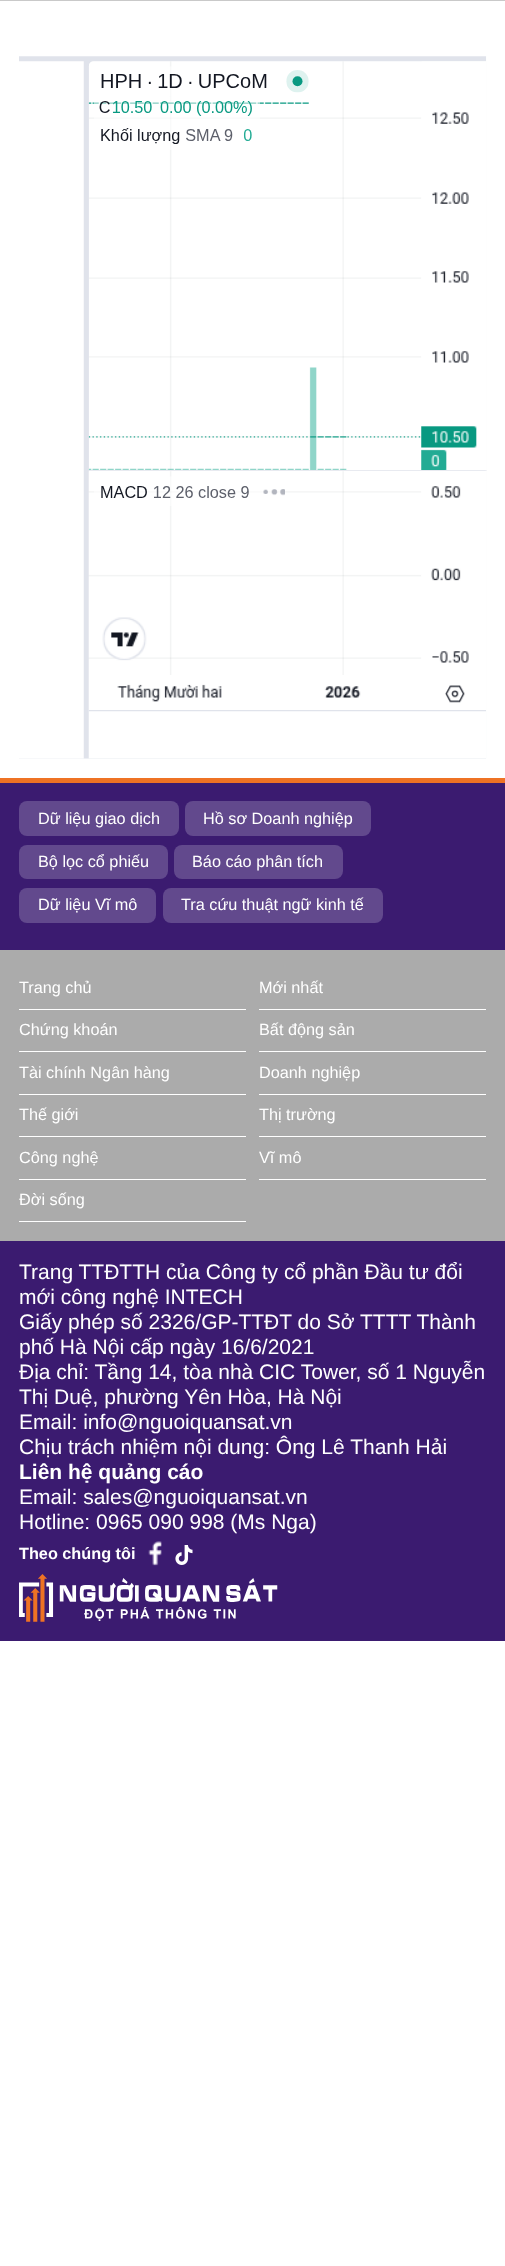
(async () => {
    const canvas = document.querySelector("canvas");
    canvas.width = 505;
    canvas.height = 2266;
    const context = canvas.getContext("2d");
    context.miterLimit = 4;
    context.fontKerning = "normal";
    function write(s, x, y, font, color) {
        context.font = font;
        context.fillStyle = color;
        context.fillText(s, x, y);
    }
    function block(x, y, w, h, color) {
        context.fillStyle = color;
        context.fillRect(x, y, w, h);
    }
    function card(x, y, w, h, r, color) {
        context.fillStyle = color;
        context.beginPath();
        context.roundRect(x, y, w, h, r);
        context.fill();
    }
    async function photo(src, x, y, w, h) {
        const img = new Image();
        img.src = src;
        await img.decode();
        context.drawImage(img, x, y, w, h);
    }

    block(0, 0, 505, 2266, "rgb(255, 255, 255)");
    block(0, 0, 505, 1, "rgb(201, 201, 201)");
    await photo("media/1.png", 19, 56, 468, 703);
    block(0, 783, 505, 858, "rgb(59, 27, 112)");
    block(0, 778, 505, 5, "rgb(238, 114, 36)");
    card(19, 801, 160, 35, 8, "rgb(98, 73, 141)");
    write("Dữ liệu giao dịch", 38, 824, "16.25px Liberation Sans", "rgb(255, 255, 255)");
    card(185, 801, 186, 35, 8, "rgb(98, 73, 141)");
    write("Hồ sơ Doanh nghiệp", 203, 824, "16.25px Liberation Sans", "rgb(255, 255, 255)");
    card(19, 845, 149, 34, 8, "rgb(98, 73, 141)");
    write("Bộ lọc cổ phiếu", 38, 867, "16.25px Liberation Sans", "rgb(255, 255, 255)");
    card(174, 845, 169, 34, 8, "rgb(98, 73, 141)");
    write("Báo cáo phân tích", 192, 867, "16.25px Liberation Sans", "rgb(255, 255, 255)");
    card(19, 888, 137, 35, 8, "rgb(98, 73, 141)");
    write("Dữ liệu Vĩ mô", 38, 910, "16.25px Liberation Sans", "rgb(255, 255, 255)");
    card(163, 888, 220, 35, 8, "rgb(98, 73, 141)");
    write("Tra cứu thuật ngữ kinh tế", 181, 910, "16.25px Liberation Sans", "rgb(255, 255, 255)");
    block(0, 950, 505, 291, "rgb(171, 171, 171)");
    block(19, 1009, 227, 1, "rgb(255, 255, 255)");
    write("Trang chủ", 19, 993, "16.25px Liberation Sans", "rgb(255, 255, 255)");
    block(259, 1009, 227, 1, "rgb(255, 255, 255)");
    write("Mới nhất", 259, 993, "16.25px Liberation Sans", "rgb(255, 255, 255)");
    block(19, 1051, 227, 1, "rgb(255, 255, 255)");
    write("Chứng khoán", 19, 1035, "16.25px Liberation Sans", "rgb(255, 255, 255)");
    block(259, 1051, 227, 1, "rgb(255, 255, 255)");
    write("Bất động sản", 259, 1035, "16.25px Liberation Sans", "rgb(255, 255, 255)");
    block(19, 1094, 227, 1, "rgb(255, 255, 255)");
    write("Tài chính Ngân hàng", 19, 1078, "16.25px Liberation Sans", "rgb(255, 255, 255)");
    block(259, 1094, 227, 1, "rgb(255, 255, 255)");
    write("Doanh nghiệp", 259, 1078, "16.25px Liberation Sans", "rgb(255, 255, 255)");
    block(19, 1136, 227, 1, "rgb(255, 255, 255)");
    write("Thế giới", 19, 1120, "16.25px Liberation Sans", "rgb(255, 255, 255)");
    block(259, 1136, 227, 1, "rgb(255, 255, 255)");
    write("Thị trường", 259, 1120, "16.25px Liberation Sans", "rgb(255, 255, 255)");
    block(19, 1179, 227, 1, "rgb(255, 255, 255)");
    write("Công nghệ", 19, 1163, "16.25px Liberation Sans", "rgb(255, 255, 255)");
    block(259, 1179, 227, 1, "rgb(255, 255, 255)");
    write("Vĩ mô", 259, 1163, "16.25px Liberation Sans", "rgb(255, 255, 255)");
    block(19, 1221, 227, 1, "rgb(255, 255, 255)");
    write("Đời sống", 19, 1205, "16.25px Liberation Sans", "rgb(255, 255, 255)");
    write("Trang TTĐTTH của Công ty cổ phần Đầu tư đổi", 19, 1279, "21px Liberation Sans", "rgb(255, 255, 255)");
    write("mới công nghệ INTECH", 19, 1304, "21px Liberation Sans", "rgb(255, 255, 255)");
    write("Giấy phép số 2326/GP-TTĐT do Sở TTTT Thành", 19, 1329, "21px Liberation Sans", "rgb(255, 255, 255)");
    write("phố Hà Nội cấp ngày 16/6/2021", 19, 1354, "21px Liberation Sans", "rgb(255, 255, 255)");
    write("Địa chỉ: Tầng 14, tòa nhà CIC Tower, số 1 Nguyễn", 19, 1379, "21px Liberation Sans", "rgb(255, 255, 255)");
    write("Thị Duệ, phường Yên Hòa, Hà Nội", 19, 1404, "21px Liberation Sans", "rgb(255, 255, 255)");
    write("Email: info@nguoiquansat.vn", 19, 1429, "21px Liberation Sans", "rgb(255, 255, 255)");
    write("Chịu trách nhiệm nội dung: Ông Lê Thanh Hải", 19, 1454, "21px Liberation Sans", "rgb(255, 255, 255)");
    write("Liên hệ quảng cáo", 19, 1479, "bold 21px Liberation Sans", "rgb(255, 255, 255)");
    write("Email: sales@nguoiquansat.vn", 19, 1504, "21px Liberation Sans", "rgb(255, 255, 255)");
    write("Hotline: 0965 090 998 (Ms Nga)", 19, 1529, "21px Liberation Sans", "rgb(255, 255, 255)");
    write("Theo chúng tôi", 19, 1559, "bold 16.25px Liberation Sans", "rgb(255, 255, 255)");
    await photo("media/2.png", 148, 1541, 14, 25);
    await photo("media/3.png", 175, 1545, 18, 20);
    await photo("media/4.png", 19, 1574, 259, 48);
})();
